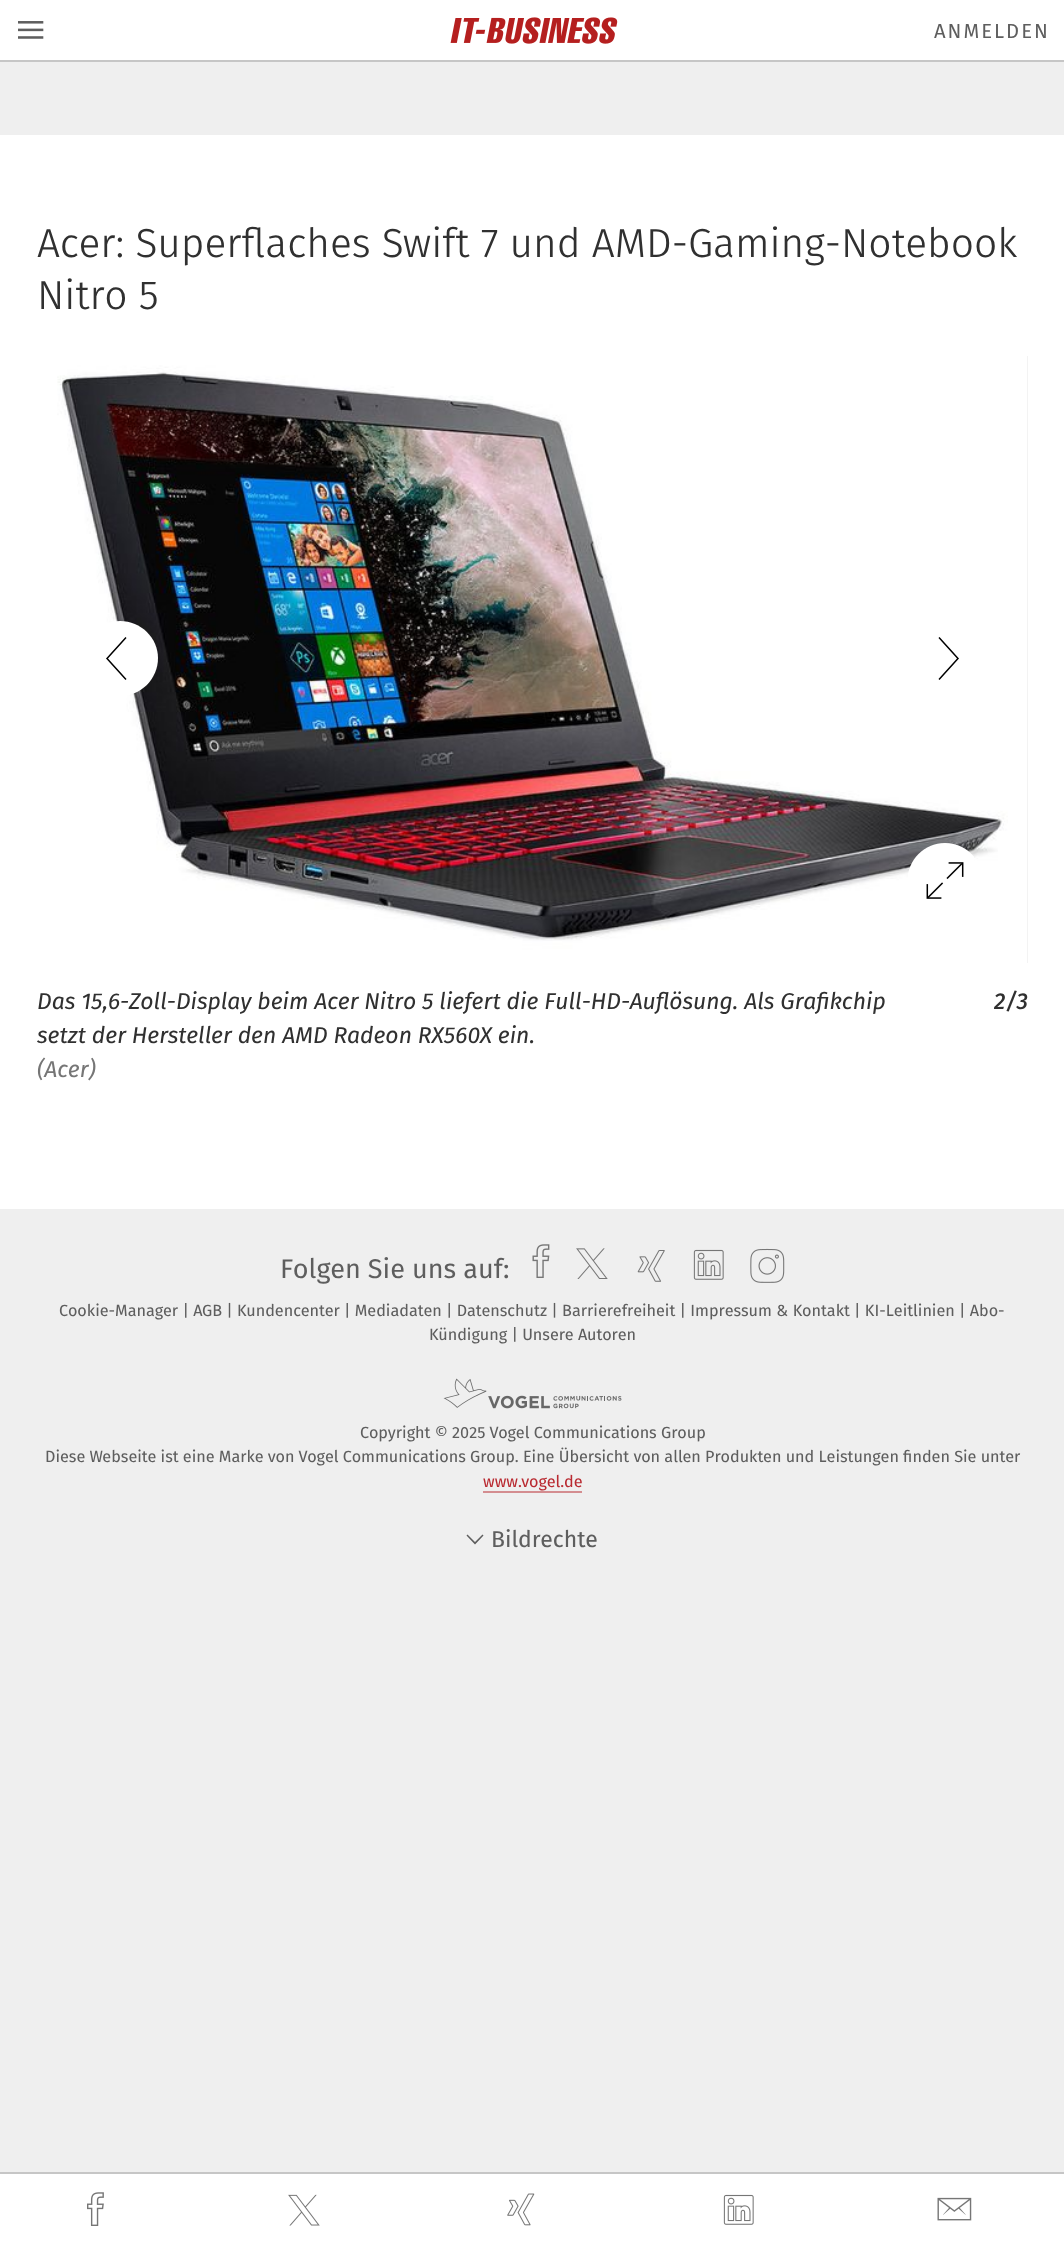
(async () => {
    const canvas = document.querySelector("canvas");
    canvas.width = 1064;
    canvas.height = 2246;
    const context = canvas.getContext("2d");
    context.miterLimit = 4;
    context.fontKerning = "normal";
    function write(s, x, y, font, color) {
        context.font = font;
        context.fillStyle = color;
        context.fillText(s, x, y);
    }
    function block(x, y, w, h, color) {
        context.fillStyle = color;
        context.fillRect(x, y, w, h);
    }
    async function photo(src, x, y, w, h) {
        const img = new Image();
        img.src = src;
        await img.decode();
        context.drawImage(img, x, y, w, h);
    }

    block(0, 0, 1064, 2246, "rgb(239, 239, 239)");
    block(0, 135, 1064, 1074, "rgb(255, 255, 255)");
    block(0, 0, 1064, 60, "rgb(255, 255, 255)");
    block(0, 60, 1064, 2, "rgb(198, 198, 198)");
    await photo("media/1.png", 18, 21, 26, 18);
    await photo("media/2.png", 450, 17, 168, 27);
    context.letterSpacing = "2px";
    write("ANMELDEN", 934, 38, "20.25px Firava", "rgb(94, 94, 94)");
    context.letterSpacing = "0px";
    write("Acer: Superflaches Swift 7 und AMD-Gaming-Notebook", 37, 257, "300 40.5px Firava", "rgb(48, 48, 48)");
    write("Nitro 5", 37, 309, "300 40.5px Firava", "rgb(48, 48, 48)");
    block(1027, 356, 1, 607, "rgb(239, 239, 239)");
    await photo("media/3.png", 38, 356, 990, 607);
    context.save();
    context.beginPath();
    context.rect(83, 621, 75, 75);
    context.clip();
    context.fillStyle = "rgb(255, 255, 255)";
    context.beginPath();
    context.moveTo(120, 696);
    context.bezierCurveTo(141, 696, 158, 679, 158, 658);
    context.bezierCurveTo(158, 638, 141, 621, 120, 621);
    context.bezierCurveTo(99, 621, 82, 638, 82, 658);
    context.bezierCurveTo(82, 679, 99, 696, 120, 696);
    context.fill();
    context.restore();
    context.beginPath();
    context.moveTo(126, 637.5);
    context.lineTo(107, 658.5);
    context.lineTo(126, 679.5);
    context.strokeStyle = "rgb(0, 0, 0)";
    context.lineWidth = 1.5;
    context.stroke();
    context.beginPath();
    context.moveTo(939, 679.5);
    context.lineTo(958, 658.5);
    context.lineTo(939, 637.5);
    context.stroke();
    await photo("media/4.png", 908, 843, 66, 56);
    write("Das 15,6-Zoll-Display beim Acer Nitro 5 liefert die Full-HD-Auflösung. Als Grafikchip", 37, 1009, "italic 22.95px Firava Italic", "rgb(48, 48, 48)");
    write("setzt der Hersteller den AMD Radeon RX560X ein.", 37, 1043, "italic 22.95px Firava Italic", "rgb(48, 48, 48)");
    write("(Acer)", 37, 1077, "italic 22.95px Firava Italic", "rgb(118, 118, 118)");
    write("2/3", 994, 1009, "italic 500 22.95px Firava Italic", "rgb(48, 48, 48)");
    block(0, 2174, 1064, 72, "rgb(255, 255, 255)");
    block(0, 2172, 1064, 2, "rgb(198, 198, 198)");
    await photo("media/5.png", 87, 2192, 17, 34);
    await photo("media/6.png", 288, 2194, 32, 32);
    await photo("media/7.png", 507, 2193, 28, 33);
    await photo("media/8.png", 723, 2194, 31, 31);
    await photo("media/9.png", 937, 2197, 35, 24);
    write("Folgen Sie uns auf:", 280, 1278, "27px Firava", "rgb(94, 94, 94)");
    await photo("media/10.png", 532, 1244, 18, 34);
    await photo("media/11.png", 576, 1248, 32, 31);
    await photo("media/12.png", 637, 1250, 28, 32);
    await photo("media/13.png", 693, 1249, 31, 31);
    await photo("media/14.png", 750, 1248, 35, 35);
    write("Cookie-Manager | AGB | Kundencenter | Mediadaten | Datenschutz | Barrierefreiheit | Impressum & Kontakt | KI-Leitlinien | Abo-", 59, 1316, "16.2px 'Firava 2'", "rgb(94, 94, 94)");
    write("Kündigung | Unsere Autoren", 429, 1340, "16.2px 'Firava 2'", "rgb(94, 94, 94)");
    await photo("media/15.png", 443, 1378, 179, 31);
    write("Copyright © 2025 Vogel Communications Group", 360, 1438, "16.2px 'Firava 2'", "rgb(94, 94, 94)");
    write("Diese Webseite ist eine Marke von Vogel Communications Group. Eine Übersicht von allen Produkten und Leistungen finden Sie unter", 45, 1462, "16.2px 'Firava 2'", "rgb(94, 94, 94)");
    write("www.vogel.de", 483, 1487, "16.2px 'Firava 2'", "rgb(185, 42, 49)");
    block(483, 1491, 99, 2, "rgb(212, 141, 144)");
    context.fillStyle = "rgb(94, 94, 94)";
    context.beginPath();
    context.moveTo(482.5, 1534.5);
    context.lineTo(483.5, 1535.5);
    context.lineTo(475, 1544.5);
    context.lineTo(466.5, 1535.5);
    context.lineTo(467.5, 1534.5);
    context.lineTo(475, 1542);
    context.closePath();
    context.fill();
    write("Bildrechte", 491, 1547, "22.95px 'Firava 2'", "rgb(94, 94, 94)");
})();
